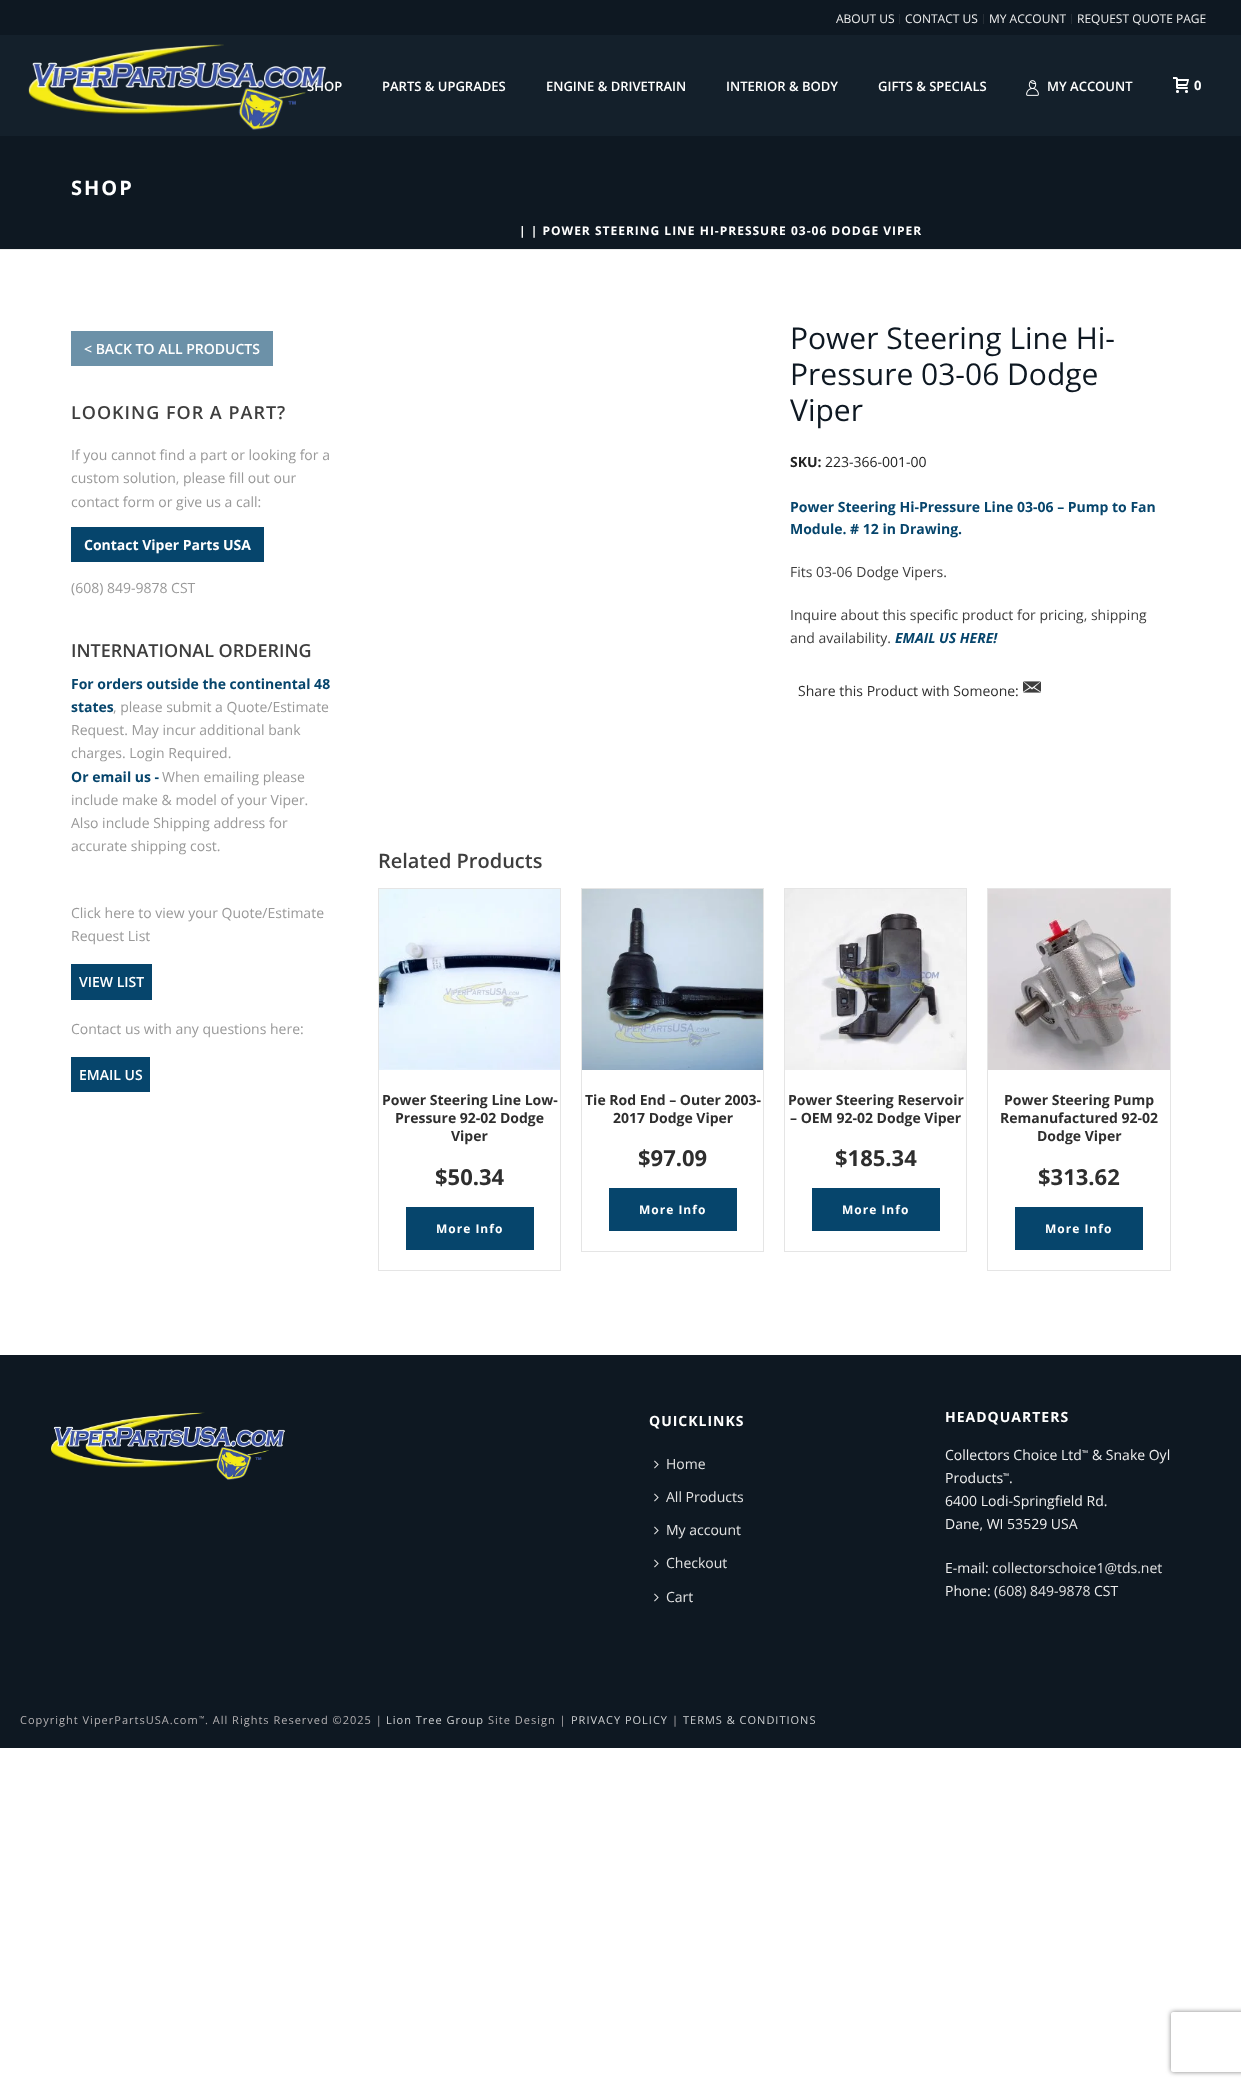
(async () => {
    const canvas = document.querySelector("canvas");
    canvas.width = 1241;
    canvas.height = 2086;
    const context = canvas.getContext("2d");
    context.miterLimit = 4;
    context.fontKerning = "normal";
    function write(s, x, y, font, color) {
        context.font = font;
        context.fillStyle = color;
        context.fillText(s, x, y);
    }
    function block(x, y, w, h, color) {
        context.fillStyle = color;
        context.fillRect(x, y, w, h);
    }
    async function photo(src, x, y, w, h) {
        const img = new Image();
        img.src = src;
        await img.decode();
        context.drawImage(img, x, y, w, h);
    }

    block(0, 0, 1241, 2086, "rgb(255, 255, 255)");
    block(0, 0, 1241, 249, "rgb(14, 24, 34)");
    block(0, 249, 1241, 1, "rgb(237, 237, 237)");
    block(899, 14, 1, 10, "rgb(37, 45, 53)");
    write("ABOUT US", 836, 23, "12px Open Sans", "rgb(239, 239, 239)");
    block(983, 14, 1, 10, "rgb(37, 45, 53)");
    write("CONTACT US", 905, 23, "12px Open Sans", "rgb(239, 239, 239)");
    block(1071, 14, 1, 10, "rgb(37, 45, 53)");
    write("MY ACCOUNT", 989, 23, "12px Open Sans", "rgb(239, 239, 239)");
    write("REQUEST QUOTE PAGE", 1077, 23, "12px Open Sans", "rgb(239, 239, 239)");
    block(0, 35, 1241, 101, "rgb(20, 32, 43)");
    write("SHOP", 307, 91, "600 13px Open Sans", "rgb(255, 255, 255)");
    await photo("media/1.png", 28, 44, 298, 86);
    write("PARTS & UPGRADES", 382, 91, "600 13px Open Sans", "rgb(255, 255, 255)");
    write("ENGINE & DRIVETRAIN", 546, 91, "600 13px Open Sans", "rgb(255, 255, 255)");
    write("INTERIOR & BODY", 726, 91, "600 13px Open Sans", "rgb(255, 255, 255)");
    write("GIFTS & SPECIALS", 878, 91, "600 13px Open Sans", "rgb(255, 255, 255)");
    await photo("media/2.png", 1026, 80, 13, 16);
    write("MY ACCOUNT", 1047, 91, "600 13px Open Sans", "rgb(255, 255, 255)");
    await photo("media/3.png", 1173, 77, 16, 16);
    write("0", 1194, 90, "bold 13px Open Sans", "rgb(255, 255, 255)");
    context.letterSpacing = "2px";
    write("SHOP", 71, 195, "bold 20px Open Sans", "rgb(255, 255, 255)");
    context.letterSpacing = "1px";
    write("| | POWER STEERING LINE HI-PRESSURE 03-06 DODGE VIPER", 519, 235, "bold 12px Open Sans", "rgb(255, 255, 255)");
    block(71, 331, 202, 35, "rgb(108, 145, 168)");
    context.letterSpacing = "0px";
    write("< BACK TO ALL PRODUCTS", 84, 354, "600 14px Open Sans", "rgb(255, 255, 255)");
    context.letterSpacing = "1px";
    write("LOOKING FOR A PART?", 71, 419, "600 18px Open Sans", "rgb(62, 62, 62)");
    context.letterSpacing = "0px";
    write("If you cannot find a part or looking for a", 71, 460, "14px Open Sans", "rgb(153, 153, 153)");
    write("custom solution, please fill out our", 71, 483, "14px Open Sans", "rgb(153, 153, 153)");
    write("contact form or give us a call:", 71, 507, "14px Open Sans", "rgb(153, 153, 153)");
    block(71, 527, 193, 35, "rgb(6, 69, 108)");
    write("Contact Viper Parts USA", 84, 550, "bold 14px Open Sans", "rgb(255, 255, 255)");
    write("(608) 849-9878 CST", 71, 593, "14px Open Sans", "rgb(153, 153, 153)");
    write("INTERNATIONAL ORDERING", 71, 657, "600 18px Open Sans", "rgb(62, 62, 62)");
    write("For orders outside the continental 48", 71, 689, "bold 14px Open Sans", "rgb(6, 69, 108)");
    write("states", 71, 712, "bold 14px Open Sans", "rgb(6, 69, 108)");
    write(", please submit a Quote/Estimate", 113, 712, "14px Open Sans", "rgb(153, 153, 153)");
    write("Request. May incur additional bank", 71, 735, "14px Open Sans", "rgb(153, 153, 153)");
    write("charges. Login Required.", 71, 758, "14px Open Sans", "rgb(153, 153, 153)");
    write("Or email us -", 71, 782, "bold 14px Open Sans", "rgb(6, 69, 108)");
    write("When emailing please", 162, 782, "14px Open Sans", "rgb(153, 153, 153)");
    write("include make & model of your Viper.", 71, 805, "14px Open Sans", "rgb(153, 153, 153)");
    write("Also include Shipping address for", 71, 828, "14px Open Sans", "rgb(153, 153, 153)");
    write("accurate shipping cost.", 71, 851, "14px Open Sans", "rgb(153, 153, 153)");
    write("Click here to view your Quote/Estimate", 71, 918, "14px Open Sans", "rgb(153, 153, 153)");
    write("Request List", 71, 941, "14px Open Sans", "rgb(153, 153, 153)");
    block(71, 964, 81, 36, "rgb(6, 69, 108)");
    write("VIEW LIST", 79, 987, "600 14px Open Sans", "rgb(255, 255, 255)");
    write("Contact us with any questions here:", 71, 1034, "14px Open Sans", "rgb(153, 153, 153)");
    block(71, 1057, 79, 35, "rgb(6, 69, 108)");
    write("EMAIL US", 79, 1080, "600 14px Open Sans", "rgb(255, 255, 255)");
    write("Power Steering Line Hi-", 790, 349, "30px Open Sans", "rgb(14, 24, 34)");
    write("Pressure 03-06 Dodge", 790, 385, "30px Open Sans", "rgb(14, 24, 34)");
    write("Viper", 790, 421, "30px Open Sans", "rgb(14, 24, 34)");
    write("SKU:", 790, 467, "bold 14px Open Sans", "rgb(34, 34, 34)");
    write("223-366-001-00", 825, 467, "14px Open Sans", "rgb(34, 34, 34)");
    write("Power Steering Hi-Pressure Line 03-06 – Pump to Fan", 790, 512, "bold 14px Open Sans", "rgb(6, 69, 108)");
    write("Module. # 12 in Drawing.", 790, 534, "bold 14px Open Sans", "rgb(6, 69, 108)");
    write("Fits 03-06 Dodge Vipers.", 790, 577, "14px Open Sans", "rgb(62, 62, 62)");
    write("Inquire about this specific product for pricing, shipping", 790, 620, "14px Open Sans", "rgb(62, 62, 62)");
    write("and availability.", 790, 643, "14px Open Sans", "rgb(62, 62, 62)");
    write("EMAIL US HERE!", 895, 643, "italic bold 14px Open Sans", "rgb(6, 69, 108)");
    write("Share this Product with Someone:", 798, 696, "14px Open Sans", "rgb(46, 46, 46)");
    await photo("media/4.png", 1023, 681, 18, 12);
    write("Related Products", 378, 868, "600 20px Open Sans", "rgb(62, 62, 62)");
    context.strokeStyle = "rgb(229, 229, 229)";
    context.strokeRect(378.5, 888.5, 182, 382);
    await photo("media/5.png", 379, 889, 181, 181);
    write("Power Steering Line Low-", 382, 1105, "bold 14px Open Sans", "rgb(46, 46, 46)");
    write("Pressure 92-02 Dodge", 395, 1123, "bold 14px Open Sans", "rgb(46, 46, 46)");
    write("Viper", 451, 1141, "bold 14px Open Sans", "rgb(46, 46, 46)");
    write("$50.34", 435, 1185, "bold 22px Open Sans", "rgb(46, 46, 46)");
    block(406, 1207, 128, 43, "rgb(6, 69, 108)");
    context.letterSpacing = "1px";
    write("More Info", 436, 1233, "bold 12px Open Sans", "rgb(255, 255, 255)");
    context.strokeRect(581.5, 888.5, 182, 363);
    await photo("media/6.png", 582, 889, 181, 181);
    context.letterSpacing = "0px";
    write("Tie Rod End – Outer 2003-", 585, 1105, "bold 14px Open Sans", "rgb(46, 46, 46)");
    write("2017 Dodge Viper", 613, 1123, "bold 14px Open Sans", "rgb(46, 46, 46)");
    write("$97.09", 638, 1166, "bold 22px Open Sans", "rgb(46, 46, 46)");
    block(609, 1188, 128, 43, "rgb(6, 69, 108)");
    context.letterSpacing = "1px";
    write("More Info", 639, 1214, "bold 12px Open Sans", "rgb(255, 255, 255)");
    context.strokeRect(784.5, 888.5, 182, 363);
    await photo("media/7.png", 785, 889, 181, 181);
    context.letterSpacing = "0px";
    write("Power Steering Reservoir", 788, 1105, "bold 14px Open Sans", "rgb(46, 46, 46)");
    write("– OEM 92-02 Dodge Viper", 790, 1123, "bold 14px Open Sans", "rgb(46, 46, 46)");
    write("$185.34", 835, 1166, "bold 22px Open Sans", "rgb(46, 46, 46)");
    block(812, 1188, 128, 43, "rgb(6, 69, 108)");
    context.letterSpacing = "1px";
    write("More Info", 842, 1214, "bold 12px Open Sans", "rgb(255, 255, 255)");
    context.strokeRect(987.5, 888.5, 183, 382);
    await photo("media/8.png", 988, 889, 182, 181);
    context.letterSpacing = "0px";
    write("Power Steering Pump", 1004, 1105, "bold 14px Open Sans", "rgb(46, 46, 46)");
    write("Remanufactured 92-02", 1000, 1123, "bold 14px Open Sans", "rgb(46, 46, 46)");
    write("Dodge Viper", 1037, 1141, "bold 14px Open Sans", "rgb(46, 46, 46)");
    write("$313.62", 1038, 1185, "bold 22px Open Sans", "rgb(46, 46, 46)");
    block(1015, 1207, 128, 43, "rgb(6, 69, 108)");
    context.letterSpacing = "1px";
    write("More Info", 1045, 1233, "bold 12px Open Sans", "rgb(255, 255, 255)");
    block(0, 1355, 1241, 393, "rgb(14, 24, 34)");
    await photo("media/9.png", 51, 1412, 234, 68);
    write("QUICKLINKS", 649, 1426, "bold 14px Open Sans", "rgb(255, 255, 255)");
    await photo("media/10.png", 654, 1460, 5, 9);
    context.letterSpacing = "0px";
    write("Home", 666, 1469, "14px Open Sans", "rgb(226, 226, 226)");
    await photo("media/10.png", 654, 1493, 5, 9);
    write("All Products", 666, 1502, "14px Open Sans", "rgb(226, 226, 226)");
    await photo("media/10.png", 654, 1526, 5, 9);
    write("My account", 666, 1535, "14px Open Sans", "rgb(226, 226, 226)");
    await photo("media/10.png", 654, 1559, 5, 9);
    write("Checkout", 666, 1568, "14px Open Sans", "rgb(226, 226, 226)");
    await photo("media/10.png", 654, 1593, 5, 9);
    write("Cart", 666, 1602, "14px Open Sans", "rgb(226, 226, 226)");
    context.letterSpacing = "1px";
    write("HEADQUARTERS", 945, 1422, "bold 14px Open Sans", "rgb(255, 255, 255)");
    context.letterSpacing = "0px";
    write("Collectors Choice Ltd", 945, 1460, "14px Open Sans", "rgb(239, 239, 239)");
    write("™", 1082, 1456, "8px Open Sans", "rgb(239, 239, 239)");
    write("& Snake Oyl", 1092, 1460, "14px Open Sans", "rgb(239, 239, 239)");
    write("Products", 945, 1483, "14px Open Sans", "rgb(239, 239, 239)");
    write("™", 1003, 1479, "8px Open Sans", "rgb(239, 239, 239)");
    write(".", 1009, 1483, "14px Open Sans", "rgb(239, 239, 239)");
    write("6400 Lodi-Springfield Rd.", 945, 1506, "14px Open Sans", "rgb(239, 239, 239)");
    write("Dane, WI 53529 USA", 945, 1529, "14px Open Sans", "rgb(239, 239, 239)");
    write("E-mail:", 945, 1573, "14px Open Sans", "rgb(239, 239, 239)");
    write("collectorschoice1@tds.net", 992, 1573, "14px Open Sans", "rgb(226, 226, 226)");
    write("Phone:", 945, 1596, "14px Open Sans", "rgb(239, 239, 239)");
    write("(608) 849-9878", 994, 1596, "14px Open Sans", "rgb(226, 226, 226)");
    write("CST", 1094, 1596, "14px Open Sans", "rgb(239, 239, 239)");
    context.letterSpacing = "1px";
    write("Copyright ViperPartsUSA.com", 20, 1724, "11px Open Sans", "rgb(180, 177, 179)");
    write("™", 199, 1721, "7px Open Sans", "rgb(180, 177, 179)");
    write(". All Rights Reserved ©2025 |", 205, 1724, "11px Open Sans", "rgb(180, 177, 179)");
    write("Lion Tree Group", 386, 1724, "11px Open Sans", "rgb(207, 209, 211)");
    write("Site Design |", 488, 1724, "11px Open Sans", "rgb(180, 177, 179)");
    write("PRIVACY POLICY", 571, 1724, "11px Open Sans", "rgb(207, 209, 211)");
    write("|", 672, 1724, "11px Open Sans", "rgb(180, 177, 179)");
    write("TERMS & CONDITIONS", 683, 1724, "11px Open Sans", "rgb(207, 209, 211)");
    context.save();
    context.beginPath();
    context.moveTo(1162, 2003);
    context.lineTo(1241, 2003);
    context.lineTo(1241, 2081);
    context.lineTo(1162, 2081);
    context.closePath();
    context.moveTo(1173, 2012);
    context.lineTo(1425, 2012);
    context.bezierCurveTo(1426, 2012, 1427, 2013, 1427, 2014);
    context.lineTo(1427, 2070);
    context.bezierCurveTo(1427, 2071, 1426, 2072, 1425, 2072);
    context.lineTo(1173, 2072);
    context.bezierCurveTo(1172, 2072, 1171, 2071, 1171, 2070);
    context.lineTo(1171, 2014);
    context.bezierCurveTo(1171, 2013, 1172, 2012, 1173, 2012);
    context.closePath();
    context.clip("evenodd");
    context.fillStyle = "rgb(128, 128, 128)";
    context.filter = "blur(2.5px)";
    context.beginPath();
    context.roundRect(1171, 2012, 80, 60, 2);
    context.fill();
    context.filter = "none";
    context.restore();
})();
